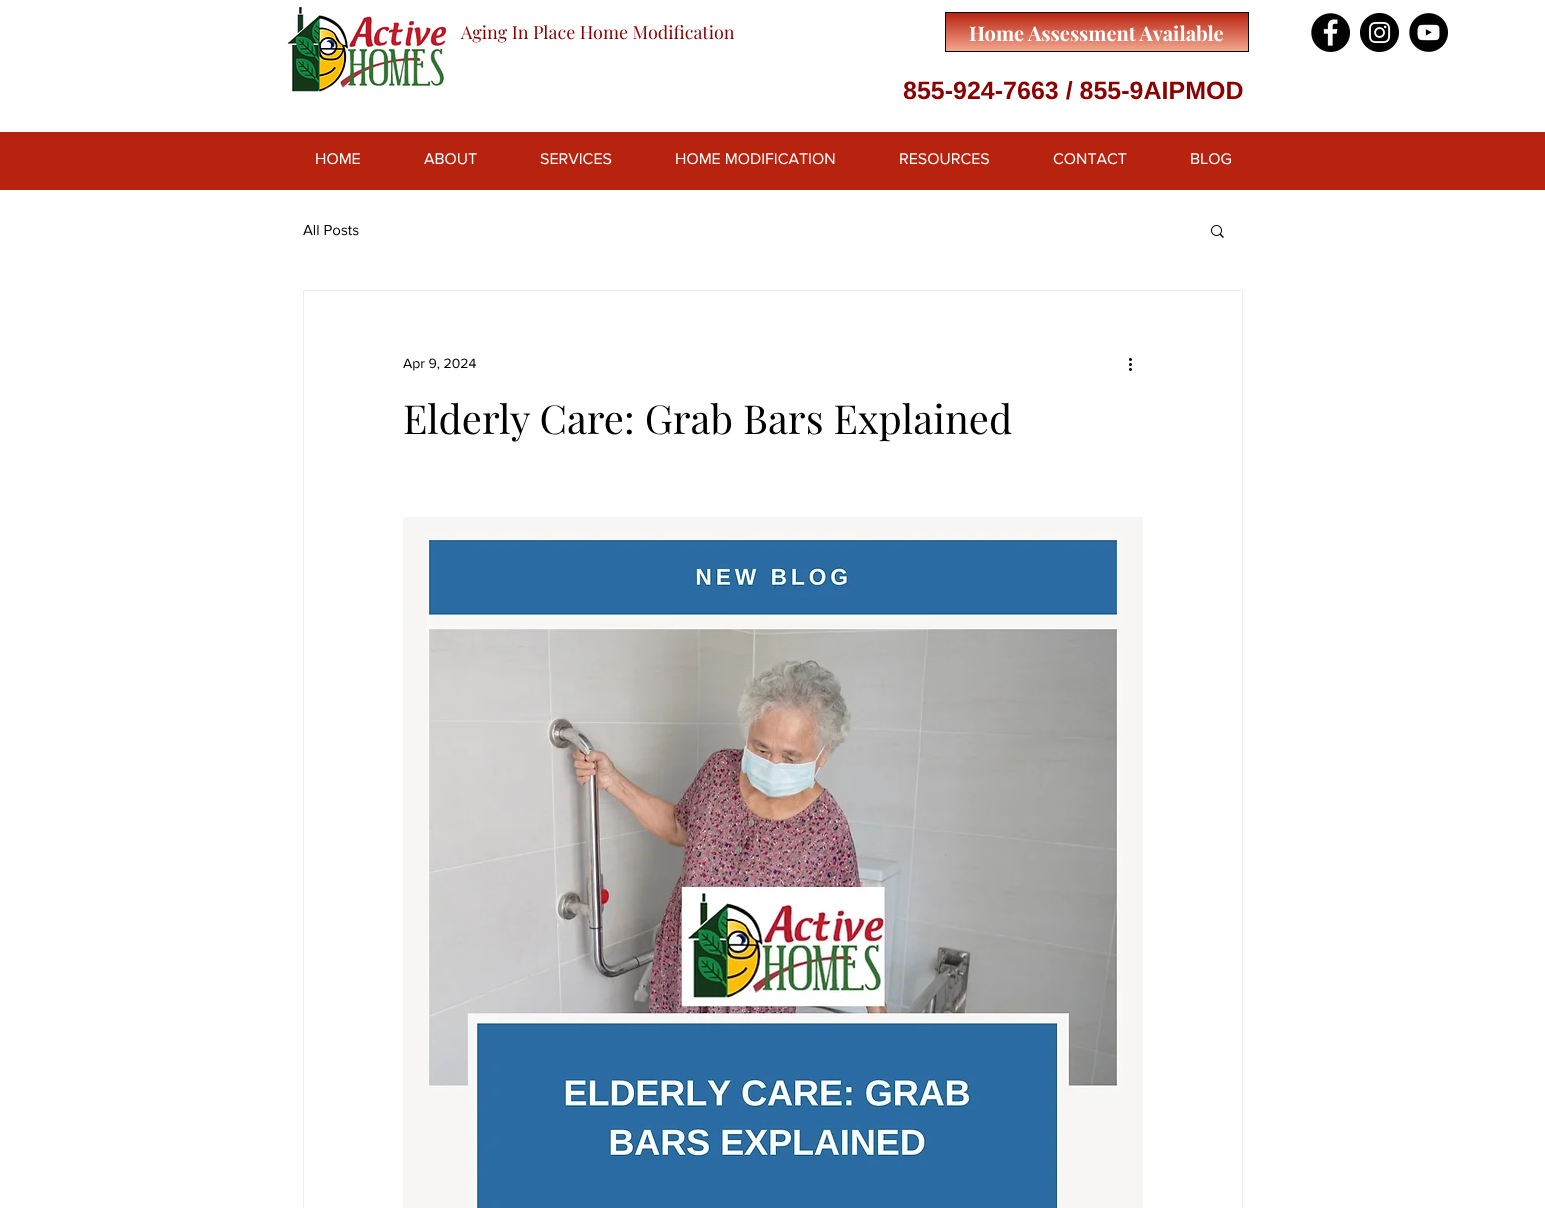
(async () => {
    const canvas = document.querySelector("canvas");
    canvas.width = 1545;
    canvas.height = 1208;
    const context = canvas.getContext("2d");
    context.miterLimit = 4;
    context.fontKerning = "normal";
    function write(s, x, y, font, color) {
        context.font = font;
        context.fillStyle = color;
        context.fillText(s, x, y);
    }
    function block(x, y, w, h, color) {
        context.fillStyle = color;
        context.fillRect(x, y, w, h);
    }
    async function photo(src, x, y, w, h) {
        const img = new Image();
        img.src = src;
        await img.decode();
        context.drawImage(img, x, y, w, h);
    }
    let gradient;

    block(0, 0, 1545, 1208, "rgb(255, 255, 255)");
    await photo("media/1.png", 287, 6, 160, 86);
    write("Aging In Place Home Modification", 461, 39, "18px Playfair Display", "rgb(139, 0, 0)");
    gradient = context.createLinearGradient(1097, 13, 1097, 51);
    gradient.addColorStop(0, "rgb(184, 35, 15)");
    gradient.addColorStop(1, "rgb(243, 167, 143)");
    context.fillStyle = gradient;
    context.fillRect(946, 13, 302, 38);
    context.strokeStyle = "rgb(0, 0, 0)";
    context.strokeRect(945.5, 12.5, 303, 39);
    write("Home Assessment Available", 969, 41, "bold 20px Playfair Display", "rgb(255, 255, 255)");
    await photo("media/2.png", 1311, 13, 39, 39);
    await photo("media/3.png", 1360, 13, 39, 39);
    await photo("media/4.png", 1409, 13, 39, 39);
    write("855-924-7663 / 855-9AIPMOD", 903, 99, "bold 25px Liberation Sans", "rgb(139, 0, 0)");
    block(0, 132, 1545, 58, "rgb(184, 35, 15)");
    write("HOME", 315, 164, "16px 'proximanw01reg'", "rgb(255, 255, 255)");
    write("ABOUT", 424, 164, "16px 'proximanw01reg'", "rgb(255, 255, 255)");
    write("SERVICES", 540, 164, "16px 'proximanw01reg'", "rgb(255, 255, 255)");
    write("HOME MODIFICATION", 675, 164, "16px 'proximanw01reg'", "rgb(255, 255, 255)");
    write("RESOURCES", 899, 164, "16px 'proximanw01reg'", "rgb(255, 255, 255)");
    write("CONTACT", 1053, 164, "16px 'proximanw01reg'", "rgb(255, 255, 255)");
    write("BLOG", 1190, 164, "16px 'proximanw01reg'", "rgb(255, 255, 255)");
    write("All Posts", 303, 235, "15px 'proximanw01reg'", "rgb(0, 0, 0)");
    await photo("media/5.png", 1211, 225, 13, 13);
    context.strokeStyle = "rgb(238, 236, 236)";
    context.strokeRect(303.5, 290.5, 939, 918);
    write("Apr 9, 2024", 403, 368, "14px 'proximanw01reg'", "rgb(0, 0, 0)");
    await photo("media/6.png", 1129, 358, 3, 13);
    write("Elderly Care: Grab Bars Explained", 403, 434, "40px Playfair Display", "rgb(0, 0, 0)");
    await photo("media/7.png", 403, 517, 740, 691);
})();
